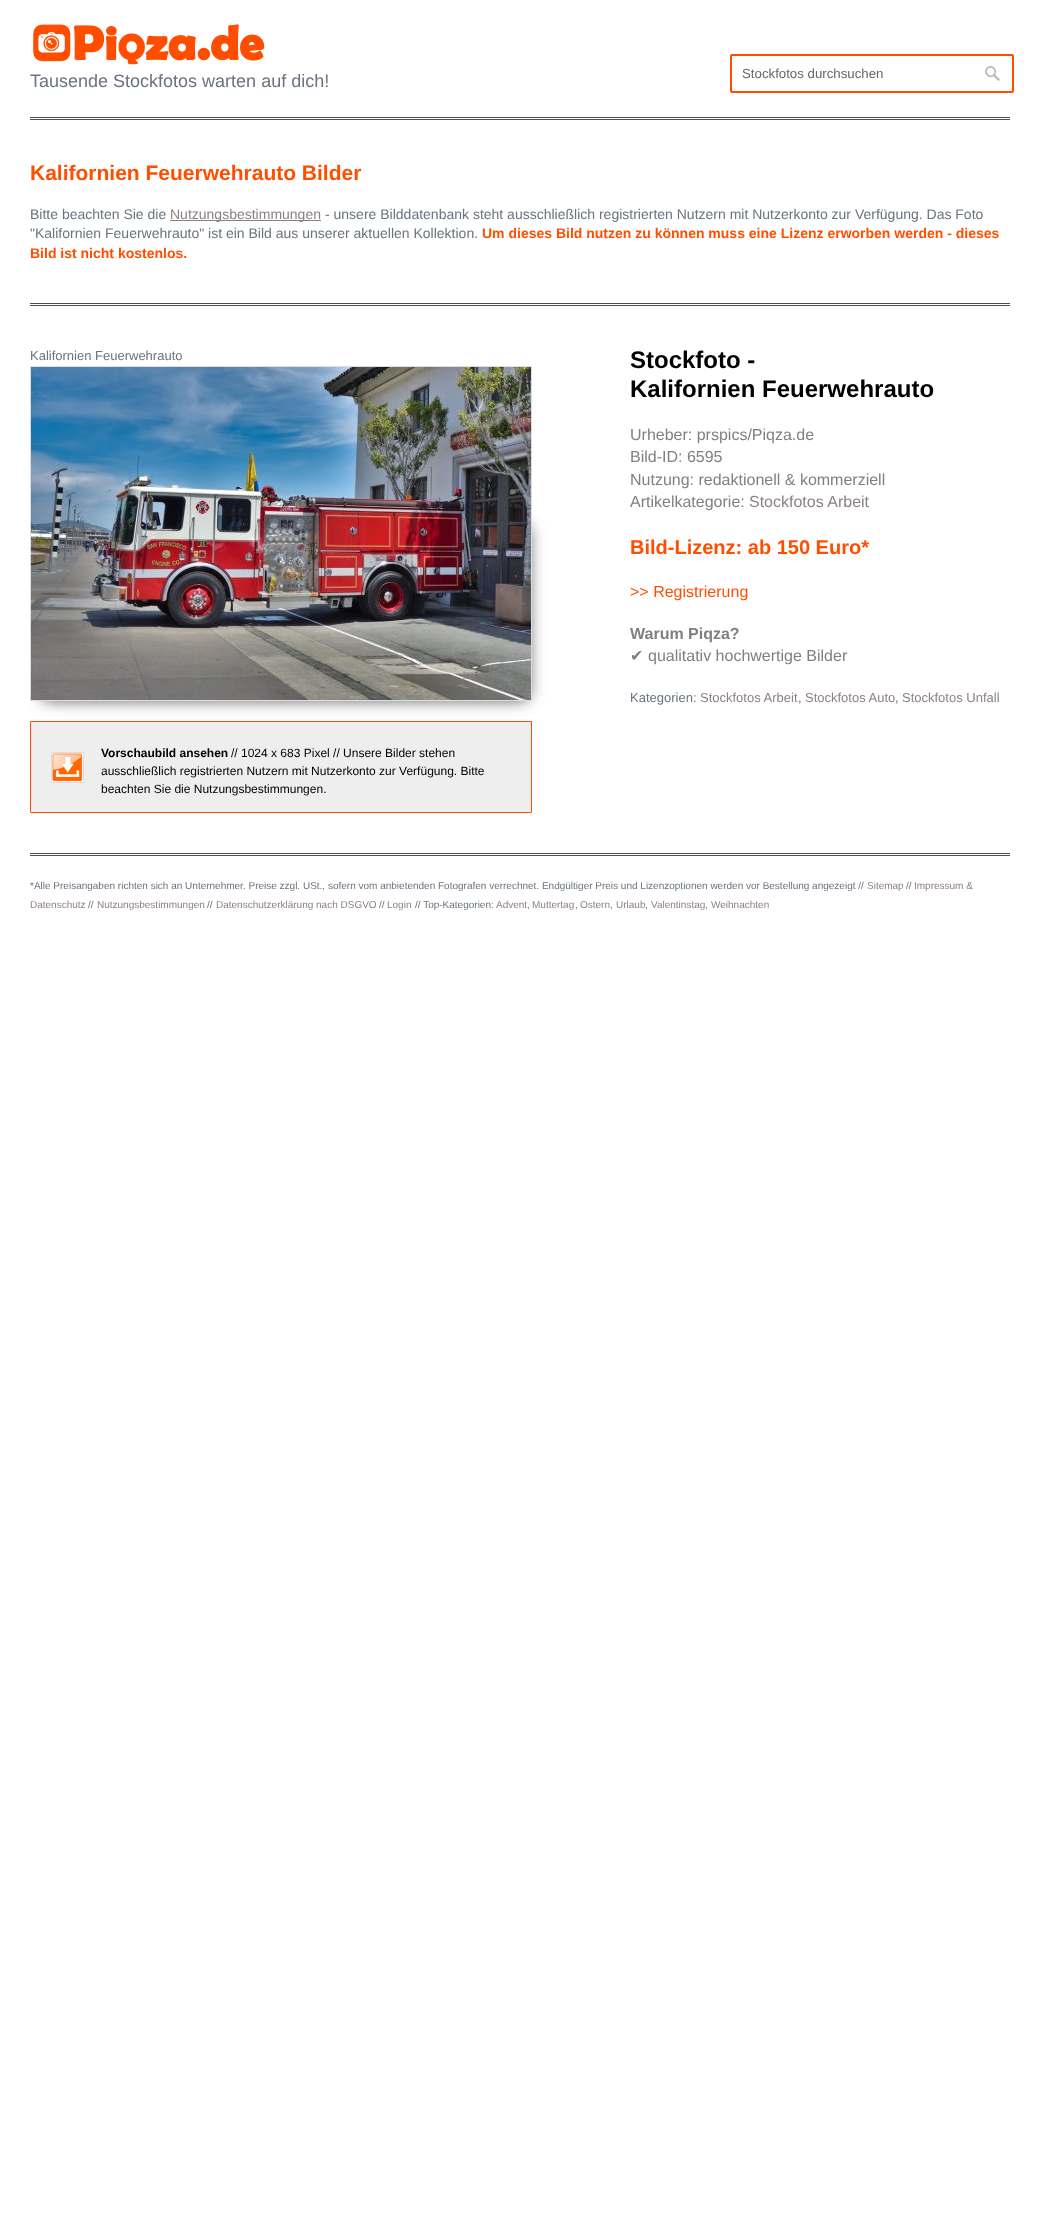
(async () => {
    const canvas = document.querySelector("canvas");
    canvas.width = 1040;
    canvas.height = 2238;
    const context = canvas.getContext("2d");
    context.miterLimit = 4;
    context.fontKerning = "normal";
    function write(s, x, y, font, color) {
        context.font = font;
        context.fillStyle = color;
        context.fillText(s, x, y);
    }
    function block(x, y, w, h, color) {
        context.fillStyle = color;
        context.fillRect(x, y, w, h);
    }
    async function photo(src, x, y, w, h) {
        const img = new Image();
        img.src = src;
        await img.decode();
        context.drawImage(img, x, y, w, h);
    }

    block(0, 0, 1040, 2238, "rgb(255, 255, 255)");
    block(30, 117, 980, 1, "rgb(75, 81, 90)");
    block(30, 119, 980, 1, "rgb(75, 81, 90)");
    await photo("media/1.png", 33, 24, 232, 41);
    write("Tausende Stockfotos warten auf dich!", 30, 87, "18px Liberation Sans", "rgb(106, 115, 127)");
    context.beginPath();
    context.roundRect(731, 55, 282, 37, 1);
    context.strokeStyle = "rgb(255, 78, 0)";
    context.lineWidth = 2;
    context.stroke();
    write("Stockfotos durchsuchen", 742, 78, "13.25px Liberation Sans", "rgb(102, 102, 102)");
    await photo("media/2.png", 985, 66, 15, 15);
    block(30, 303, 980, 1, "rgb(75, 81, 90)");
    block(30, 305, 980, 1, "rgb(75, 81, 90)");
    write("Kalifornien Feuerwehrauto Bilder", 30, 180, "bold 21px Liberation Sans", "rgb(255, 78, 0)");
    write("Bitte beachten Sie die", 30, 219, "14px Liberation Sans", "rgb(106, 115, 127)");
    block(170, 220, 151, 1, "rgb(143, 128, 128)");
    write("Nutzungsbestimmungen", 170, 219, "14px Liberation Sans", "rgb(143, 128, 128)");
    write("- unsere Bilddatenbank steht ausschließlich registrierten Nutzern mit Nutzerkonto zur Verfügung. Das Foto", 325, 219, "14px Liberation Sans", "rgb(106, 115, 127)");
    write("\"Kalifornien Feuerwehrauto\" ist ein Bild aus unserer aktuellen Kollektion.", 30, 238, "14px Liberation Sans", "rgb(106, 115, 127)");
    write("Um dieses Bild nutzen zu können muss eine Lizenz erworben werden - dieses", 482, 238, "bold 14px Liberation Sans", "rgb(255, 78, 0)");
    write("Bild ist nicht kostenlos.", 30, 258, "bold 14px Liberation Sans", "rgb(255, 78, 0)");
    write("Kalifornien Feuerwehrauto", 30, 360, "13px Liberation Sans", "rgb(106, 115, 127)");
    context.save();
    context.beginPath();
    context.rect(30, 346, 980, 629);
    context.clip();
    context.fillStyle = "rgba(0, 0, 0, 0.6)";
    context.filter = "blur(7.5px)";
    context.beginPath();
    context.roundRect(40, 523, 490, 178, 10);
    context.fill();
    context.filter = "none";
    context.restore();
    context.strokeStyle = "rgb(221, 221, 221)";
    context.lineWidth = 1;
    context.strokeRect(30.5, 366.5, 501, 334);
    await photo("media/3.png", 31, 367, 500, 333);
    context.fillStyle = "rgb(238, 238, 238)";
    context.beginPath();
    context.rect(30.5, 721.5, 501, 91);
    context.fill();
    context.strokeStyle = "rgb(255, 78, 0)";
    context.stroke();
    context.strokeStyle = "rgb(221, 221, 221)";
    context.strokeRect(51.5, 752.5, 32, 30);
    await photo("media/4.png", 52, 753, 31, 29);
    write("Vorschaubild ansehen", 101, 757, "bold 12px Liberation Sans", "rgb(0, 0, 0)");
    write("// 1024 x 683 Pixel // Unsere Bilder stehen", 231, 757, "12px Liberation Sans", "rgb(0, 0, 0)");
    write("ausschließlich registrierten Nutzern mit Nutzerkonto zur Verfügung. Bitte", 101, 775, "12px Liberation Sans", "rgb(0, 0, 0)");
    write("beachten Sie die Nutzungsbestimmungen.", 101, 793, "12px Liberation Sans", "rgb(0, 0, 0)");
    write("Stockfoto -", 630, 368, "bold 24px Liberation Sans", "rgb(0, 0, 0)");
    write("Kalifornien Feuerwehrauto", 630, 397, "bold 24px Liberation Sans", "rgb(0, 0, 0)");
    write("Urheber: prspics/Piqza.de", 630, 440, "16px Liberation Sans", "rgb(128, 128, 128)");
    write("Bild-ID: 6595", 630, 462, "16px Liberation Sans", "rgb(128, 128, 128)");
    write("Nutzung: redaktionell & kommerziell", 630, 485, "16px Liberation Sans", "rgb(128, 128, 128)");
    write("Artikelkategorie:", 630, 507, "16px Liberation Sans", "rgb(128, 128, 128)");
    write("Stockfotos Arbeit", 749, 507, "16px Liberation Sans", "rgb(143, 128, 128)");
    write("Bild-Lizenz: ab 150 Euro*", 630, 554, "bold 20px Liberation Sans", "rgb(255, 78, 0)");
    write(">> Registrierung", 630, 597, "16px Liberation Sans", "rgb(255, 78, 0)");
    write("Warum Piqza?", 630, 639, "bold 16px Liberation Sans", "rgb(128, 128, 128)");
    write("✔", 630, 661, "16px DejaVu Sans", "rgb(128, 128, 128)");
    write("qualitativ hochwertige Bilder", 648, 661, "16px Liberation Sans", "rgb(128, 128, 128)");
    write("Kategorien:", 630, 702, "13px Liberation Sans", "rgb(106, 115, 127)");
    write("Stockfotos Arbeit", 700, 702, "13px Liberation Sans", "rgb(143, 128, 128)");
    write(",", 798, 702, "13px Liberation Sans", "rgb(106, 115, 127)");
    write("Stockfotos Auto", 805, 702, "13px Liberation Sans", "rgb(143, 128, 128)");
    write(",", 895, 702, "13px Liberation Sans", "rgb(106, 115, 127)");
    write("Stockfotos Unfall", 902, 702, "13px Liberation Sans", "rgb(143, 128, 128)");
    block(30, 853, 980, 1, "rgb(75, 81, 90)");
    block(30, 855, 980, 1, "rgb(75, 81, 90)");
    write("*Alle Preisangaben richten sich an Unternehmer. Preise zzgl. USt., sofern vom anbietenden Fotografen verrechnet. Endgültiger Preis und Lizenzoptionen werden vor Bestellung angezeigt //", 30, 889, "10px Liberation Sans", "rgb(106, 115, 127)");
    write("Sitemap", 867, 889, "10px Liberation Sans", "rgb(143, 128, 128)");
    write("//", 906, 889, "10px Liberation Sans", "rgb(106, 115, 127)");
    write("Impressum &", 914, 889, "10px Liberation Sans", "rgb(143, 128, 128)");
    write("Datenschutz", 30, 908, "10px Liberation Sans", "rgb(143, 128, 128)");
    write("//", 88, 908, "10px Liberation Sans", "rgb(106, 115, 127)");
    write("Nutzungsbestimmungen", 97, 908, "10px Liberation Sans", "rgb(143, 128, 128)");
    write("//", 207, 908, "10px Liberation Sans", "rgb(106, 115, 127)");
    write("Datenschutzerklärung nach DSGVO", 216, 908, "10px Liberation Sans", "rgb(143, 128, 128)");
    write("//", 379, 908, "10px Liberation Sans", "rgb(106, 115, 127)");
    write("Login", 387, 908, "10px Liberation Sans", "rgb(143, 128, 128)");
    write("// Top-Kategorien:", 415, 908, "10px Liberation Sans", "rgb(106, 115, 127)");
    write("Advent", 496, 908, "10px Liberation Sans", "rgb(143, 128, 128)");
    write(",", 527, 908, "10px Liberation Sans", "rgb(106, 115, 127)");
    write("Muttertag", 532, 908, "10px Liberation Sans", "rgb(143, 128, 128)");
    write(",", 575, 908, "10px Liberation Sans", "rgb(106, 115, 127)");
    write("Ostern", 580, 908, "10px Liberation Sans", "rgb(143, 128, 128)");
    write(",", 610, 908, "10px Liberation Sans", "rgb(106, 115, 127)");
    write("Urlaub", 616, 908, "10px Liberation Sans", "rgb(143, 128, 128)");
    write(",", 645, 908, "10px Liberation Sans", "rgb(106, 115, 127)");
    write("Valentinstag", 651, 908, "10px Liberation Sans", "rgb(143, 128, 128)");
    write(",", 705, 908, "10px Liberation Sans", "rgb(106, 115, 127)");
    write("Weihnachten", 711, 908, "10px Liberation Sans", "rgb(143, 128, 128)");
})();
